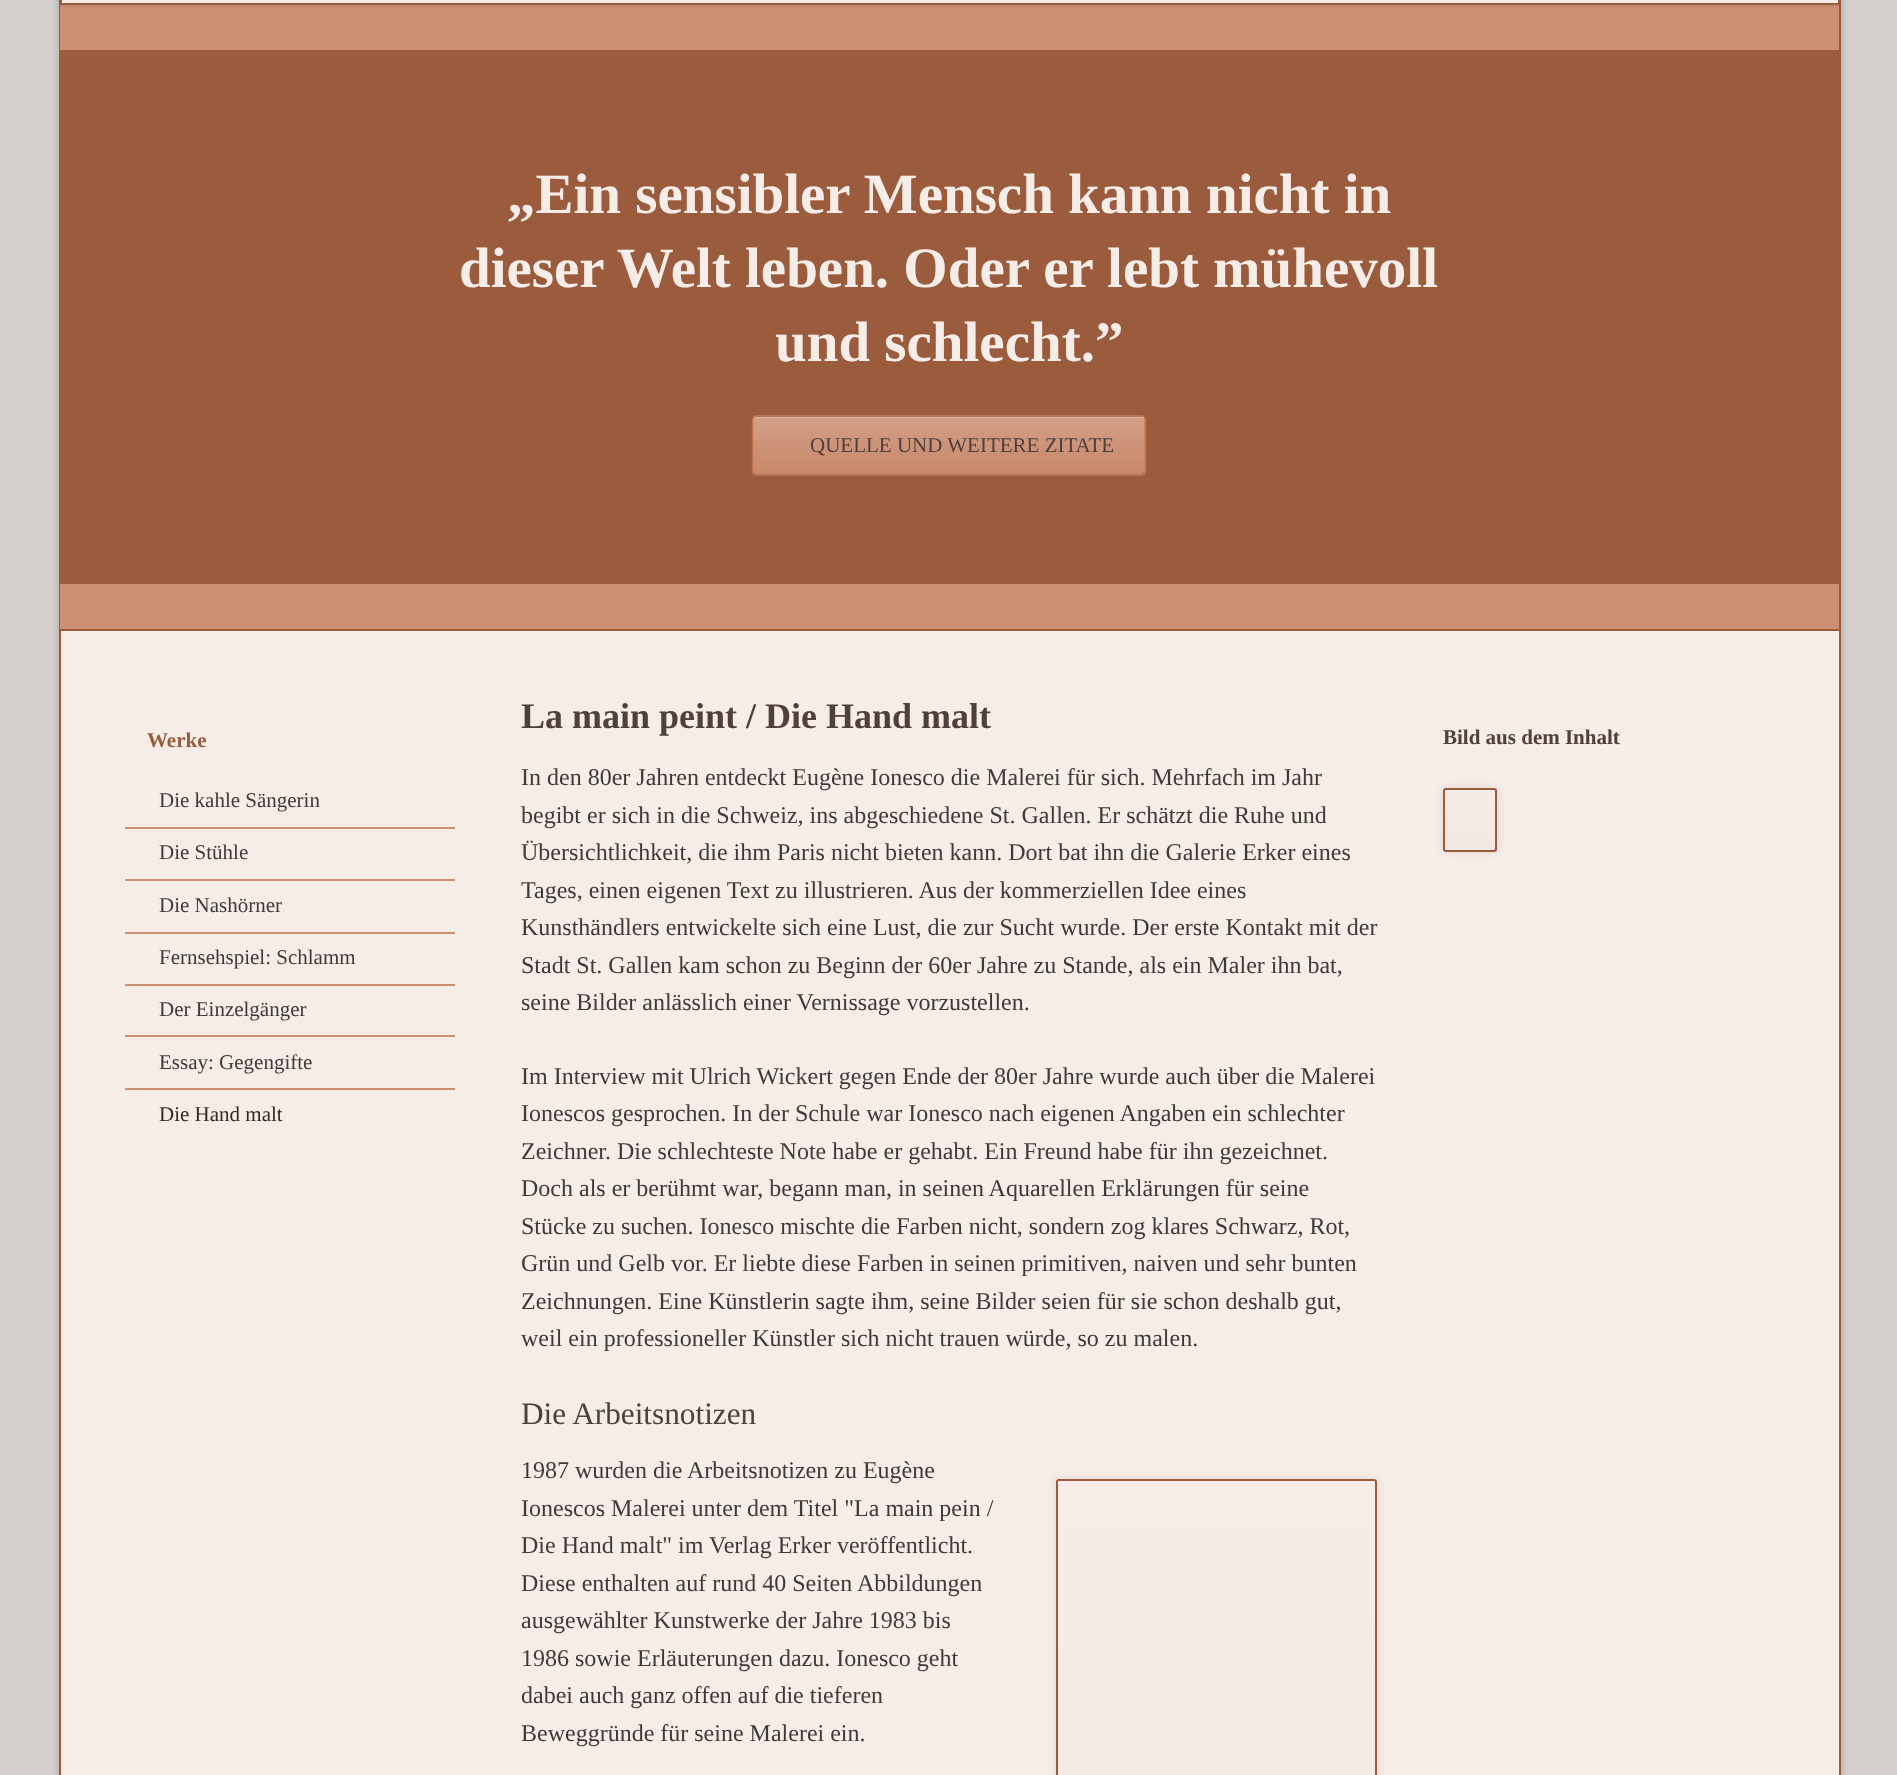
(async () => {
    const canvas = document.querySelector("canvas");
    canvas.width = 1897;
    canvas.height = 1775;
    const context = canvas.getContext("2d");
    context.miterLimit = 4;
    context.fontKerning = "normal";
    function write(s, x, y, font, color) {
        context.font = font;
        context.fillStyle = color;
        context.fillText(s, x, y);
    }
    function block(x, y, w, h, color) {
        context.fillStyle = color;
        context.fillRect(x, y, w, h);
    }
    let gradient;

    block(0, 0, 1897, 1775, "rgb(213, 207, 205)");
    context.fillStyle = "rgba(0, 0, 0, 0.2)";
    context.filter = "blur(4px)";
    context.beginPath();
    context.rect(59, -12, 1782, 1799);
    context.fill();
    context.filter = "none";
    block(61, 631, 1778, 1144, "rgb(246, 237, 232)");
    block(1839, 0, 2, 1775, "rgb(155, 91, 61)");
    block(59, 0, 2, 1775, "rgb(155, 91, 61)");
    block(60, 5, 1779, 45, "rgb(204, 144, 116)");
    context.fillStyle = "rgba(0, 0, 0, 0.1)";
    context.filter = "blur(1.5px)";
    context.beginPath();
    context.rect(60, -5, 1779, 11);
    context.fill();
    context.filter = "none";
    block(60, 0, 1779, 3, "rgb(246, 237, 232)");
    block(1838, 0, 2, 5, "rgb(155, 91, 61)");
    block(60, 3, 1779, 2, "rgb(155, 91, 61)");
    block(60, 0, 2, 5, "rgb(155, 91, 61)");
    block(60, 629, 1779, 2, "rgb(155, 91, 61)");
    block(61, 50, 1778, 534, "rgb(155, 91, 61)");
    block(60, 584, 1779, 45, "rgb(204, 144, 116)");
    write("„Ein sensibler Mensch kann nicht in", 507, 213, "bold 57px Liberation Serif", "rgb(246, 237, 232)");
    write("dieser Welt leben. Oder er lebt mühevoll", 459, 287, "bold 57px Liberation Serif", "rgb(246, 237, 232)");
    write("und schlecht.”", 775, 361, "bold 57px Liberation Serif", "rgb(246, 237, 232)");
    context.save();
    context.beginPath();
    context.roundRect(752, 416, 394, 60, 5);
    context.clip();
    gradient = context.createLinearGradient(949, 417, 949, 474);
    gradient.addColorStop(0, "rgb(211, 159, 135)");
    gradient.addColorStop(1, "rgb(200, 135, 105)");
    context.fillStyle = gradient;
    context.fillRect(752, 417, 394, 57);
    gradient = context.createLinearGradient(949, 474, 949, 531);
    gradient.addColorStop(0, "rgb(211, 159, 135)");
    gradient.addColorStop(1, "rgb(200, 135, 105)");
    context.fillStyle = gradient;
    context.fillRect(752, 474, 394, 2);
    context.restore();
    context.fillStyle = "rgb(219, 177, 157)";
    context.beginPath();
    context.moveTo(756, 418);
    context.lineTo(1142, 418);
    context.bezierCurveTo(1146, 418, 1144, 436, 1144, 439);
    context.lineTo(1144, 473);
    context.bezierCurveTo(1145, 473, 1145, 472, 1145, 471);
    context.lineTo(1145, 420);
    context.bezierCurveTo(1145, 418, 1144, 417, 1142, 417);
    context.lineTo(756, 417);
    context.bezierCurveTo(754, 417, 753, 418, 753, 420);
    context.lineTo(753, 422);
    context.bezierCurveTo(753, 420, 754, 418, 756, 418);
    context.closePath();
    context.fill();
    context.beginPath();
    context.moveTo(753.5, 417.5);
    context.bezierCurveTo(754, 416.5, 755, 416, 756, 416);
    context.lineTo(1141.5, 416);
    context.bezierCurveTo(1142.5, 416, 1143.5, 416.5, 1144, 417.5);
    context.strokeStyle = "rgb(197, 129, 97)";
    context.lineWidth = 1.5;
    context.stroke();
    context.beginPath();
    context.moveTo(1144, 417.5);
    context.lineTo(1145, 419.5);
    context.lineTo(1145, 471.5);
    context.lineTo(1144, 473.5);
    context.strokeStyle = "rgb(190, 114, 79)";
    context.stroke();
    context.beginPath();
    context.moveTo(1144, 473.5);
    context.bezierCurveTo(1143.5, 474.5, 1142.5, 475, 1141.5, 475);
    context.lineTo(756, 475);
    context.bezierCurveTo(755, 475, 754, 474.5, 753.5, 473.5);
    context.strokeStyle = "rgb(178, 101, 65)";
    context.stroke();
    context.beginPath();
    context.moveTo(753.5, 473.5);
    context.lineTo(752.5, 471.5);
    context.lineTo(752.5, 419.5);
    context.lineTo(753.5, 417.5);
    context.strokeStyle = "rgb(190, 114, 79)";
    context.stroke();
    write("QUELLE UND WEITERE ZITATE", 810, 452, "21px Liberation Serif", "rgb(79, 64, 61)");
    write("Werke", 147, 747, "bold 21px Liberation Serif", "rgb(155, 91, 61)");
    write("Die kahle Sängerin", 159, 807, "21px Liberation Serif", "rgb(61, 59, 57)");
    block(125, 827, 330, 2, "rgb(204, 144, 116)");
    write("Die Stühle", 159, 859, "21px Liberation Serif", "rgb(61, 59, 57)");
    block(125, 879, 330, 2, "rgb(204, 144, 116)");
    write("Die Nashörner", 159, 912, "21px Liberation Serif", "rgb(61, 59, 57)");
    block(125, 932, 330, 2, "rgb(204, 144, 116)");
    write("Fernsehspiel: Schlamm", 159, 964, "21px Liberation Serif", "rgb(61, 59, 57)");
    block(125, 984, 330, 2, "rgb(204, 144, 116)");
    write("Der Einzelgänger", 159, 1016, "21px Liberation Serif", "rgb(61, 59, 57)");
    block(125, 1035, 330, 2, "rgb(204, 144, 116)");
    write("Essay: Gegengifte", 159, 1069, "21px Liberation Serif", "rgb(61, 59, 57)");
    block(125, 1088, 330, 2, "rgb(204, 144, 116)");
    write("Die Hand malt", 159, 1121, "21px Liberation Serif", "rgb(50, 41, 39)");
    write("La main peint / Die Hand malt", 521, 728, "bold 36px Liberation Serif", "rgb(79, 64, 61)");
    write("In den 80er Jahren entdeckt Eugène Ionesco die Malerei für sich. Mehrfach im Jahr", 521, 785, "24px Liberation Serif", "rgb(61, 59, 57)");
    write("begibt er sich in die Schweiz, ins abgeschiedene St. Gallen. Er schätzt die Ruhe und", 521, 823, "24px Liberation Serif", "rgb(61, 59, 57)");
    write("Übersichtlichkeit, die ihm Paris nicht bieten kann. Dort bat ihn die Galerie Erker eines", 521, 860, "24px Liberation Serif", "rgb(61, 59, 57)");
    write("Tages, einen eigenen Text zu illustrieren. Aus der kommerziellen Idee eines", 521, 898, "24px Liberation Serif", "rgb(61, 59, 57)");
    write("Kunsthändlers entwickelte sich eine Lust, die zur Sucht wurde. Der erste Kontakt mit der", 521, 935, "24px Liberation Serif", "rgb(61, 59, 57)");
    write("Stadt St. Gallen kam schon zu Beginn der 60er Jahre zu Stande, als ein Maler ihn bat,", 521, 973, "24px Liberation Serif", "rgb(61, 59, 57)");
    write("seine Bilder anlässlich einer Vernissage vorzustellen.", 521, 1010, "24px Liberation Serif", "rgb(61, 59, 57)");
    write("Im Interview mit Ulrich Wickert gegen Ende der 80er Jahre wurde auch über die Malerei", 521, 1084, "24px Liberation Serif", "rgb(61, 59, 57)");
    write("Ionescos gesprochen. In der Schule war Ionesco nach eigenen Angaben ein schlechter", 521, 1121, "24px Liberation Serif", "rgb(61, 59, 57)");
    write("Zeichner. Die schlechteste Note habe er gehabt. Ein Freund habe für ihn gezeichnet.", 521, 1159, "24px Liberation Serif", "rgb(61, 59, 57)");
    write("Doch als er berühmt war, begann man, in seinen Aquarellen Erklärungen für seine", 521, 1196, "24px Liberation Serif", "rgb(61, 59, 57)");
    write("Stücke zu suchen. Ionesco mischte die Farben nicht, sondern zog klares Schwarz, Rot,", 521, 1234, "24px Liberation Serif", "rgb(61, 59, 57)");
    write("Grün und Gelb vor. Er liebte diese Farben in seinen primitiven, naiven und sehr bunten", 521, 1271, "24px Liberation Serif", "rgb(61, 59, 57)");
    write("Zeichnungen. Eine Künstlerin sagte ihm, seine Bilder seien für sie schon deshalb gut,", 521, 1309, "24px Liberation Serif", "rgb(61, 59, 57)");
    write("weil ein professioneller Künstler sich nicht trauen würde, so zu malen.", 521, 1346, "24px Liberation Serif", "rgb(61, 59, 57)");
    write("Die Arbeitsnotizen", 521, 1424, "31.25px Liberation Serif", "rgb(79, 64, 61)");
    write("1987 wurden die Arbeitsnotizen zu Eugène", 521, 1478, "24px Liberation Serif", "rgb(61, 59, 57)");
    write("Ionescos Malerei unter dem Titel \"La main pein /", 521, 1516, "24px Liberation Serif", "rgb(61, 59, 57)");
    write("Die Hand malt\" im Verlag Erker veröffentlicht.", 521, 1553, "24px Liberation Serif", "rgb(61, 59, 57)");
    write("Diese enthalten auf rund 40 Seiten Abbildungen", 521, 1591, "24px Liberation Serif", "rgb(61, 59, 57)");
    write("ausgewählter Kunstwerke der Jahre 1983 bis", 521, 1628, "24px Liberation Serif", "rgb(61, 59, 57)");
    write("1986 sowie Erläuterungen dazu. Ionesco geht", 521, 1666, "24px Liberation Serif", "rgb(61, 59, 57)");
    write("dabei auch ganz offen auf die tieferen", 521, 1703, "24px Liberation Serif", "rgb(61, 59, 57)");
    write("Beweggründe für seine Malerei ein.", 521, 1741, "24px Liberation Serif", "rgb(61, 59, 57)");
    context.fillStyle = "rgba(0, 0, 0, 0.1)";
    context.filter = "blur(4px)";
    context.beginPath();
    context.roundRect(1056, 1479, 321, 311, 3);
    context.fill();
    context.filter = "none";
    gradient = context.createLinearGradient(1217, 1481, 1217, 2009);
    gradient.addColorStop(0, "rgb(246, 237, 232)");
    gradient.addColorStop(1, "rgb(241, 232, 227)");
    context.fillStyle = gradient;
    context.fillRect(1056, 1481, 321, 294);
    context.beginPath();
    context.roundRect(1057, 1480, 319, 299, 2);
    context.strokeStyle = "rgb(155, 91, 61)";
    context.lineWidth = 2;
    context.stroke();
    write("Bild aus dem Inhalt", 1443, 744, "bold 21px Liberation Serif", "rgb(79, 64, 61)");
    context.fillStyle = "rgba(0, 0, 0, 0.1)";
    context.filter = "blur(4px)";
    context.beginPath();
    context.roundRect(1443, 788, 54, 64, 3);
    context.fill();
    context.filter = "none";
    context.save();
    context.beginPath();
    context.roundRect(1443, 788, 54, 64, 3);
    context.clip();
    gradient = context.createLinearGradient(1470, 789, 1470, 851);
    gradient.addColorStop(0, "rgb(246, 237, 232)");
    gradient.addColorStop(1, "rgb(241, 232, 227)");
    context.fillStyle = gradient;
    context.fillRect(1443, 789, 54, 62);
    context.restore();
    context.beginPath();
    context.roundRect(1444, 789, 52, 62, 2);
    context.stroke();
})();
